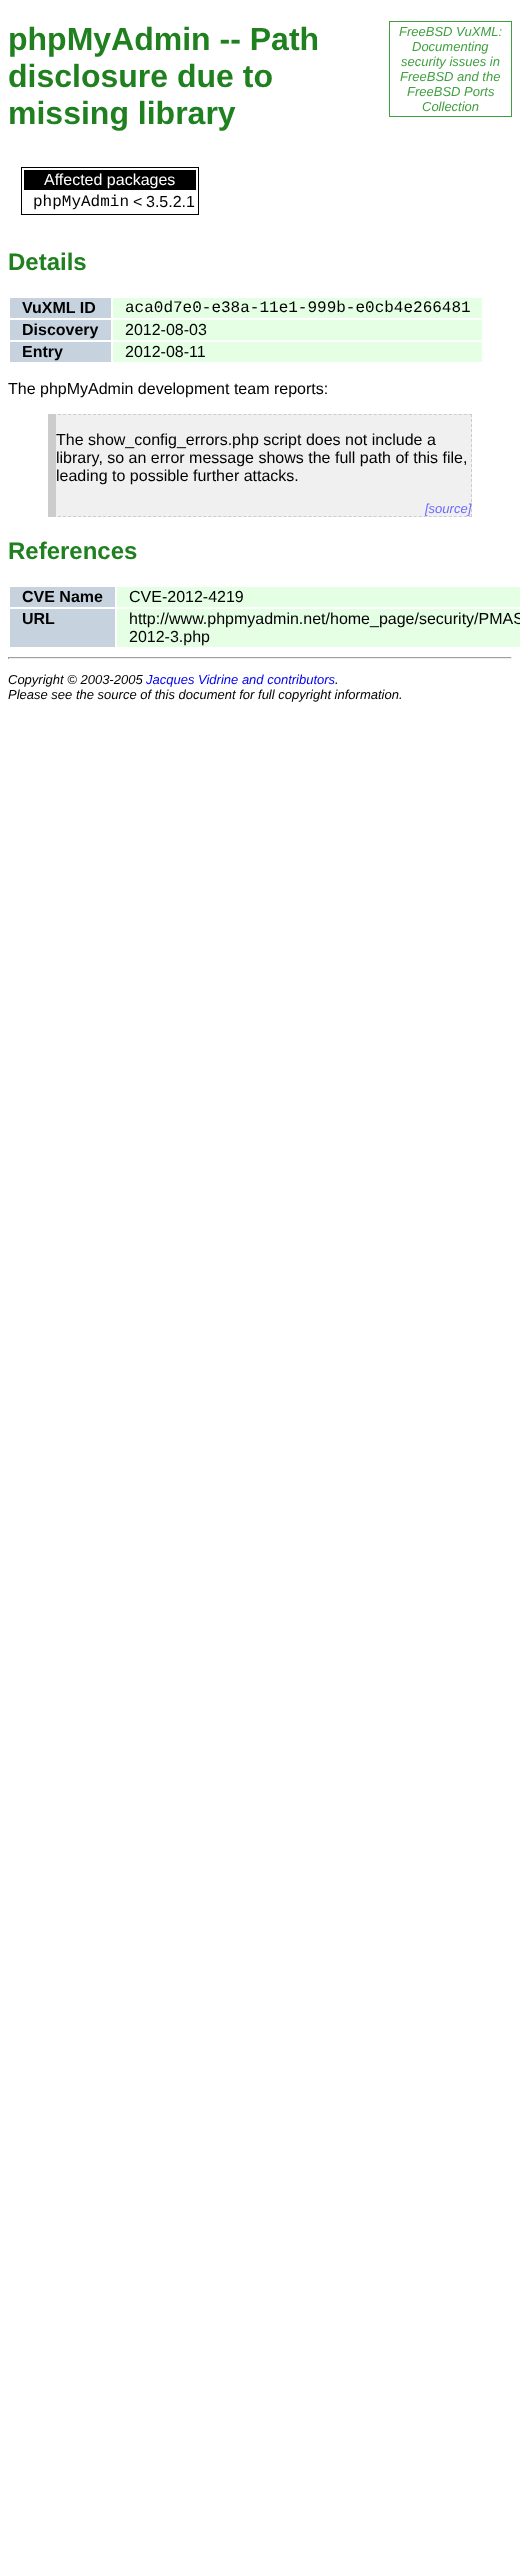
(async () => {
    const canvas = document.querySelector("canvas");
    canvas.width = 520;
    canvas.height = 2564;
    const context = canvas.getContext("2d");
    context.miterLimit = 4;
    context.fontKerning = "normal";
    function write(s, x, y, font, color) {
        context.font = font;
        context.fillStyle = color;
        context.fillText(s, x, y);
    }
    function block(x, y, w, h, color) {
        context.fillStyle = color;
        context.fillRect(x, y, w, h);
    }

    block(0, 0, 520, 2564, "rgb(255, 255, 255)");
    write("phpMyAdmin -- Path", 8, 50, "bold 32px Liberation Sans", "rgb(32, 128, 32)");
    write("disclosure due to", 8, 87, "bold 32px Liberation Sans", "rgb(32, 128, 32)");
    write("missing library", 8, 124, "bold 32px Liberation Sans", "rgb(32, 128, 32)");
    context.strokeStyle = "rgb(64, 160, 64)";
    context.strokeRect(389.5, 21.5, 122, 95);
    write("FreeBSD VuXML:", 399, 36, "italic 13px Liberation Sans", "rgb(64, 160, 64)");
    write("Documenting", 412, 51, "italic 13px Liberation Sans", "rgb(64, 160, 64)");
    write("security issues in", 401, 66, "italic 13px Liberation Sans", "rgb(64, 160, 64)");
    write("FreeBSD and the", 400, 81, "italic 13px Liberation Sans", "rgb(64, 160, 64)");
    write("FreeBSD Ports", 407, 96, "italic 13px Liberation Sans", "rgb(64, 160, 64)");
    write("Collection", 422, 111, "italic 13px Liberation Sans", "rgb(64, 160, 64)");
    context.strokeStyle = "rgb(0, 0, 0)";
    context.strokeRect(21.5, 167.5, 177, 47);
    block(24, 170, 172, 20, "rgb(0, 0, 0)");
    write("Affected packages", 44, 185, "16px Liberation Sans", "rgb(255, 255, 255)");
    write("phpMyAdmin", 33, 206, "16px Liberation Mono", "rgb(0, 0, 0)");
    write("<", 133, 207, "16px Liberation Sans", "rgb(0, 0, 0)");
    write("3.5.2.1", 146, 207, "16px Liberation Sans", "rgb(0, 0, 0)");
    write("Details", 8, 270, "bold 24px Liberation Sans", "rgb(32, 128, 32)");
    block(10, 298, 101, 20, "rgb(198, 211, 222)");
    write("VuXML ID", 22, 313, "bold 16px Liberation Sans", "rgb(0, 0, 0)");
    block(113, 298, 369, 20, "rgb(229, 255, 229)");
    write("aca0d7e0-e38a-11e1-999b-e0cb4e266481", 125, 312, "16px Liberation Mono", "rgb(0, 0, 0)");
    block(10, 320, 101, 20, "rgb(198, 211, 222)");
    write("Discovery", 22, 335, "bold 16px Liberation Sans", "rgb(0, 0, 0)");
    block(113, 320, 369, 20, "rgb(229, 255, 229)");
    write("2012-08-03", 125, 335, "16px Liberation Sans", "rgb(0, 0, 0)");
    block(10, 342, 101, 20, "rgb(198, 211, 222)");
    write("Entry", 22, 357, "bold 16px Liberation Sans", "rgb(0, 0, 0)");
    block(113, 342, 369, 20, "rgb(229, 255, 229)");
    write("2012-08-11", 125, 357, "16px Liberation Sans", "rgb(0, 0, 0)");
    write("The phpMyAdmin development team reports:", 8, 394, "16px Liberation Sans", "rgb(0, 0, 0)");
    block(56, 414, 416, 103, "rgb(240, 240, 240)");
    context.beginPath();
    context.moveTo(48, 414.5);
    context.lineTo(472, 414.5);
    context.strokeStyle = "rgb(204, 204, 204)";
    context.setLineDash([3, 2.01]);
    context.stroke();
    context.beginPath();
    context.moveTo(471.5, 414);
    context.lineTo(471.5, 517);
    context.setLineDash([3, 2]);
    context.stroke();
    context.beginPath();
    context.moveTo(48, 516.5);
    context.lineTo(472, 516.5);
    context.setLineDash([3, 2.01]);
    context.stroke();
    block(48, 414, 8, 103, "rgb(204, 204, 204)");
    write("The show_config_errors.php script does not include a", 56, 445, "16px Liberation Sans", "rgb(0, 0, 0)");
    write("library, so an error message shows the full path of this file,", 56, 463, "16px Liberation Sans", "rgb(0, 0, 0)");
    write("leading to possible further attacks.", 56, 481, "16px Liberation Sans", "rgb(0, 0, 0)");
    write("[source]", 425, 513, "italic 13px Liberation Sans", "rgb(107, 105, 255)");
    write("References", 8, 559, "bold 24px Liberation Sans", "rgb(32, 128, 32)");
    block(10, 587, 105, 20, "rgb(198, 211, 222)");
    write("CVE Name", 22, 602, "bold 16px Liberation Sans", "rgb(0, 0, 0)");
    block(117, 587, 403, 20, "rgb(229, 255, 229)");
    write("CVE-2012-4219", 129, 602, "16px Liberation Sans", "rgb(0, 0, 0)");
    block(10, 609, 105, 38, "rgb(198, 211, 222)");
    write("URL", 22, 624, "bold 16px Liberation Sans", "rgb(0, 0, 0)");
    block(117, 609, 403, 38, "rgb(229, 255, 229)");
    write("http://www.phpmyadmin.net/home_page/security/PMAS", 129, 624, "16px Liberation Sans", "rgb(0, 0, 0)");
    write("2012-3.php", 129, 642, "16px Liberation Sans", "rgb(0, 0, 0)");
    block(8, 657, 504, 1, "rgb(159, 159, 159)");
    block(511, 657, 1, 2, "rgb(238, 238, 238)");
    block(8, 658, 504, 1, "rgb(238, 238, 238)");
    block(8, 657, 1, 2, "rgb(159, 159, 159)");
    write("Copyright © 2003-2005", 8, 684, "italic 13px Liberation Sans", "rgb(0, 0, 0)");
    write("Jacques Vidrine and contributors", 146, 684, "italic 13px Liberation Sans", "rgb(0, 0, 239)");
    write(".", 335, 684, "italic 13px Liberation Sans", "rgb(0, 0, 0)");
    write("Please see the source of this document for full copyright information.", 8, 699, "italic 13px Liberation Sans", "rgb(0, 0, 0)");
})();
